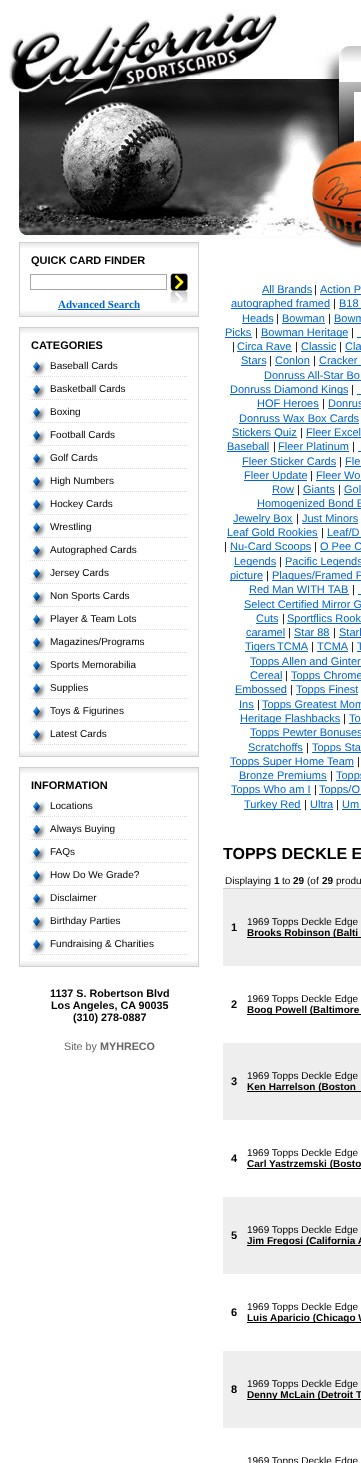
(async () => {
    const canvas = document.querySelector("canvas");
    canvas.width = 361;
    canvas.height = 1463;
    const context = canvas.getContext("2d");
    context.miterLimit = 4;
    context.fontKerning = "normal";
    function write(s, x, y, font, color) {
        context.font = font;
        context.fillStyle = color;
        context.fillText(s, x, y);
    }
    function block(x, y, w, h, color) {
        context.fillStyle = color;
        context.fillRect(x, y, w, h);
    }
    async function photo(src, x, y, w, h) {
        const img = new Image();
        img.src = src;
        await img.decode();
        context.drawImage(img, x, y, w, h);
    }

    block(0, 0, 361, 1463, "rgb(255, 255, 255)");
    await photo("media/1.png", 9, 10, 330, 72);
    await photo("media/2.png", 339, 46, 22, 16);
    await photo("media/3.png", 9, 82, 330, 157);
    await photo("media/4.png", 339, 82, 22, 157);
    await photo("media/5.png", 334, 239, 5, 3);
    await photo("media/6.png", 339, 239, 22, 10);
    await photo("media/7.png", 20, 243, 178, 5);
    block(19, 242, 180, 1, "rgb(207, 207, 207)");
    block(198, 242, 1, 75, "rgb(207, 207, 207)");
    block(19, 242, 1, 24, "rgb(207, 207, 207)");
    write("QUICK CARD FINDER", 31, 264, "bold 11px Liberation Sans", "rgb(0, 0, 0)");
    block(19, 316, 180, 1, "rgb(207, 207, 207)");
    block(19, 266, 1, 51, "rgb(207, 207, 207)");
    await photo("media/8.png", 170, 273, 18, 30);
    context.strokeStyle = "rgb(167, 167, 167)";
    context.strokeRect(30.5, 274.5, 136, 15);
    write("Advanced Search", 58, 308, "bold 11px Liberation Serif", "rgb(0, 102, 204)");
    block(58, 309, 82, 1, "rgb(0, 102, 204)");
    await photo("media/9.png", 20, 311, 178, 5);
    await photo("media/7.png", 20, 328, 178, 5);
    block(19, 327, 180, 1, "rgb(207, 207, 207)");
    block(198, 327, 1, 430, "rgb(207, 207, 207)");
    block(19, 327, 1, 24, "rgb(207, 207, 207)");
    write("CATEGORIES", 31, 349, "bold 11px Liberation Sans", "rgb(0, 0, 0)");
    block(19, 756, 180, 1, "rgb(207, 207, 207)");
    block(19, 351, 1, 406, "rgb(207, 207, 207)");
    context.beginPath();
    context.moveTo(30, 376.5);
    context.lineTo(188, 376.5);
    context.strokeStyle = "rgb(217, 217, 217)";
    context.setLineDash([1, 1]);
    context.stroke();
    await photo("media/10.png", 31, 360, 15, 16);
    write("Baseball Cards", 50, 369, "10px Liberation Sans", "rgb(0, 0, 0)");
    context.beginPath();
    context.moveTo(30, 399.5);
    context.lineTo(188, 399.5);
    context.stroke();
    await photo("media/10.png", 31, 383, 15, 16);
    write("Basketball Cards", 50, 392, "10px Liberation Sans", "rgb(0, 0, 0)");
    context.beginPath();
    context.moveTo(30, 422.5);
    context.lineTo(188, 422.5);
    context.stroke();
    await photo("media/10.png", 31, 406, 15, 16);
    write("Boxing", 50, 415, "10px Liberation Sans", "rgb(0, 0, 0)");
    context.beginPath();
    context.moveTo(30, 445.5);
    context.lineTo(188, 445.5);
    context.stroke();
    await photo("media/10.png", 31, 429, 15, 16);
    write("Football Cards", 50, 438, "10px Liberation Sans", "rgb(0, 0, 0)");
    context.beginPath();
    context.moveTo(30, 468.5);
    context.lineTo(188, 468.5);
    context.stroke();
    await photo("media/10.png", 31, 452, 15, 16);
    write("Golf Cards", 50, 461, "10px Liberation Sans", "rgb(0, 0, 0)");
    context.beginPath();
    context.moveTo(30, 491.5);
    context.lineTo(188, 491.5);
    context.stroke();
    await photo("media/10.png", 31, 475, 15, 16);
    write("High Numbers", 50, 484, "10px Liberation Sans", "rgb(0, 0, 0)");
    context.beginPath();
    context.moveTo(30, 514.5);
    context.lineTo(188, 514.5);
    context.stroke();
    await photo("media/10.png", 31, 498, 15, 16);
    write("Hockey Cards", 50, 507, "10px Liberation Sans", "rgb(0, 0, 0)");
    context.beginPath();
    context.moveTo(30, 537.5);
    context.lineTo(188, 537.5);
    context.stroke();
    await photo("media/10.png", 31, 521, 15, 16);
    write("Wrestling", 50, 530, "10px Liberation Sans", "rgb(0, 0, 0)");
    context.beginPath();
    context.moveTo(30, 560.5);
    context.lineTo(188, 560.5);
    context.stroke();
    await photo("media/10.png", 31, 544, 15, 16);
    write("Autographed Cards", 50, 553, "10px Liberation Sans", "rgb(0, 0, 0)");
    context.beginPath();
    context.moveTo(30, 583.5);
    context.lineTo(188, 583.5);
    context.stroke();
    await photo("media/10.png", 31, 567, 15, 16);
    write("Jersey Cards", 50, 576, "10px Liberation Sans", "rgb(0, 0, 0)");
    context.beginPath();
    context.moveTo(30, 606.5);
    context.lineTo(188, 606.5);
    context.stroke();
    await photo("media/10.png", 31, 590, 15, 16);
    write("Non Sports Cards", 50, 599, "10px Liberation Sans", "rgb(0, 0, 0)");
    context.beginPath();
    context.moveTo(30, 629.5);
    context.lineTo(188, 629.5);
    context.stroke();
    await photo("media/10.png", 31, 613, 15, 16);
    write("Player & Team Lots", 50, 622, "10px Liberation Sans", "rgb(0, 0, 0)");
    context.beginPath();
    context.moveTo(30, 652.5);
    context.lineTo(188, 652.5);
    context.stroke();
    await photo("media/10.png", 31, 636, 15, 16);
    write("Magazines/Programs", 50, 645, "10px Liberation Sans", "rgb(0, 0, 0)");
    context.beginPath();
    context.moveTo(30, 675.5);
    context.lineTo(188, 675.5);
    context.stroke();
    await photo("media/10.png", 31, 659, 15, 16);
    write("Sports Memorabilia", 50, 668, "10px Liberation Sans", "rgb(0, 0, 0)");
    context.beginPath();
    context.moveTo(30, 698.5);
    context.lineTo(188, 698.5);
    context.stroke();
    await photo("media/10.png", 31, 682, 15, 16);
    write("Supplies", 50, 691, "10px Liberation Sans", "rgb(0, 0, 0)");
    context.beginPath();
    context.moveTo(30, 721.5);
    context.lineTo(188, 721.5);
    context.stroke();
    await photo("media/10.png", 31, 705, 15, 16);
    write("Toys & Figurines", 50, 714, "10px Liberation Sans", "rgb(0, 0, 0)");
    context.beginPath();
    context.moveTo(30, 744.5);
    context.lineTo(188, 744.5);
    context.stroke();
    await photo("media/10.png", 31, 728, 15, 16);
    write("Latest Cards", 50, 737, "10px Liberation Sans", "rgb(0, 0, 0)");
    await photo("media/9.png", 20, 751, 178, 5);
    await photo("media/7.png", 20, 768, 178, 5);
    block(19, 767, 180, 1, "rgb(207, 207, 207)");
    block(198, 767, 1, 200, "rgb(207, 207, 207)");
    block(19, 767, 1, 24, "rgb(207, 207, 207)");
    write("INFORMATION", 31, 789, "bold 11px Liberation Sans", "rgb(0, 0, 0)");
    block(19, 966, 180, 1, "rgb(207, 207, 207)");
    block(19, 791, 1, 176, "rgb(207, 207, 207)");
    context.beginPath();
    context.moveTo(30, 816.5);
    context.lineTo(188, 816.5);
    context.stroke();
    await photo("media/10.png", 31, 800, 15, 16);
    write("Locations", 50, 809, "10px Liberation Sans", "rgb(0, 0, 0)");
    context.beginPath();
    context.moveTo(30, 839.5);
    context.lineTo(188, 839.5);
    context.stroke();
    await photo("media/10.png", 31, 823, 15, 16);
    write("Always Buying", 50, 832, "10px Liberation Sans", "rgb(0, 0, 0)");
    context.beginPath();
    context.moveTo(30, 862.5);
    context.lineTo(188, 862.5);
    context.stroke();
    await photo("media/10.png", 31, 846, 15, 16);
    write("FAQs", 50, 855, "10px Liberation Sans", "rgb(0, 0, 0)");
    context.beginPath();
    context.moveTo(30, 885.5);
    context.lineTo(188, 885.5);
    context.stroke();
    await photo("media/10.png", 31, 869, 15, 16);
    write("How Do We Grade?", 50, 878, "10px Liberation Sans", "rgb(0, 0, 0)");
    context.beginPath();
    context.moveTo(30, 908.5);
    context.lineTo(188, 908.5);
    context.stroke();
    await photo("media/10.png", 31, 892, 15, 16);
    write("Disclaimer", 50, 901, "10px Liberation Sans", "rgb(0, 0, 0)");
    context.beginPath();
    context.moveTo(30, 931.5);
    context.lineTo(188, 931.5);
    context.stroke();
    await photo("media/10.png", 31, 915, 15, 16);
    write("Birthday Parties", 50, 924, "10px Liberation Sans", "rgb(0, 0, 0)");
    context.beginPath();
    context.moveTo(30, 954.5);
    context.lineTo(188, 954.5);
    context.stroke();
    await photo("media/10.png", 31, 938, 15, 16);
    write("Fundraising & Charities", 50, 947, "10px Liberation Sans", "rgb(0, 0, 0)");
    await photo("media/9.png", 20, 961, 178, 5);
    write("1137 S. Robertson Blvd", 50, 997, "bold 10.75px Liberation Sans", "rgb(0, 0, 0)");
    write("Los Angeles, CA 90035", 51, 1009, "bold 10.75px Liberation Sans", "rgb(0, 0, 0)");
    write("(310) 278-0887", 73, 1021, "bold 10.75px Liberation Sans", "rgb(0, 0, 0)");
    write("Site by", 64, 1050, "10.75px Liberation Sans", "rgb(102, 102, 102)");
    write("MYHRECO", 100, 1050, "bold 10.75px Liberation Sans", "rgb(102, 102, 102)");
    write("All Brands", 262, 293, "11px Liberation Sans", "rgb(0, 102, 204)");
    block(262, 294, 50, 1, "rgb(0, 102, 204)");
    write("|", 314, 293, "11px Liberation Sans", "rgb(0, 0, 0)");
    write("Action P", 320, 293, "11px Liberation Sans", "rgb(0, 102, 204)");
    block(320, 294, 41, 1, "rgb(0, 102, 204)");
    block(231, 308, 99, 1, "rgb(0, 102, 204)");
    write("autographed framed", 231, 307, "11px Liberation Sans", "rgb(0, 102, 204)");
    write("|", 333, 307, "11px Liberation Sans", "rgb(0, 0, 0)");
    write("B18", 339, 307, "11px Liberation Sans", "rgb(0, 102, 204)");
    block(339, 308, 22, 1, "rgb(0, 102, 204)");
    write("Heads", 242, 322, "11px Liberation Sans", "rgb(0, 102, 204)");
    block(242, 323, 31, 1, "rgb(0, 102, 204)");
    write("|", 276, 322, "11px Liberation Sans", "rgb(0, 0, 0)");
    write("Bowman", 282, 322, "11px Liberation Sans", "rgb(0, 102, 204)");
    block(282, 323, 43, 1, "rgb(0, 102, 204)");
    write("|", 328, 322, "11px Liberation Sans", "rgb(0, 0, 0)");
    write("Bowm", 334, 322, "11px Liberation Sans", "rgb(0, 102, 204)");
    block(334, 323, 27, 1, "rgb(0, 102, 204)");
    write("Picks", 225, 336, "11px Liberation Sans", "rgb(0, 102, 204)");
    block(225, 337, 27, 1, "rgb(0, 102, 204)");
    write("|", 255, 336, "11px Liberation Sans", "rgb(0, 0, 0)");
    block(261, 337, 87, 1, "rgb(0, 102, 204)");
    write("Bowman Heritage", 261, 336, "11px Liberation Sans", "rgb(0, 102, 204)");
    write("|", 351, 336, "11px Liberation Sans", "rgb(0, 0, 0)");
    block(357, 337, 4, 1, "rgb(0, 102, 204)");
    write("|", 232, 350, "11px Liberation Sans", "rgb(0, 0, 0)");
    write("Circa Rave", 237, 350, "11px Liberation Sans", "rgb(0, 102, 204)");
    block(237, 351, 55, 1, "rgb(0, 102, 204)");
    write("|", 295, 350, "11px Liberation Sans", "rgb(0, 0, 0)");
    write("Classic", 301, 350, "11px Liberation Sans", "rgb(0, 102, 204)");
    block(301, 351, 35, 1, "rgb(0, 102, 204)");
    write("|", 339, 350, "11px Liberation Sans", "rgb(0, 0, 0)");
    write("Cla", 345, 350, "11px Liberation Sans", "rgb(0, 102, 204)");
    block(345, 351, 16, 1, "rgb(0, 102, 204)");
    write("Stars", 241, 364, "11px Liberation Sans", "rgb(0, 102, 204)");
    block(241, 365, 25, 1, "rgb(0, 102, 204)");
    write("|", 269, 364, "11px Liberation Sans", "rgb(0, 0, 0)");
    write("Conlon", 275, 364, "11px Liberation Sans", "rgb(0, 102, 204)");
    block(275, 365, 35, 1, "rgb(0, 102, 204)");
    write("|", 313, 364, "11px Liberation Sans", "rgb(0, 0, 0)");
    write("Cracker", 319, 364, "11px Liberation Sans", "rgb(0, 102, 204)");
    block(319, 365, 42, 1, "rgb(0, 102, 204)");
    write("Donruss All-Star Bo", 264, 379, "11px Liberation Sans", "rgb(0, 102, 204)");
    block(264, 380, 97, 1, "rgb(0, 102, 204)");
    block(230, 394, 118, 1, "rgb(0, 102, 204)");
    write("Donruss Diamond Kings", 230, 393, "11px Liberation Sans", "rgb(0, 102, 204)");
    write("|", 351, 393, "11px Liberation Sans", "rgb(0, 0, 0)");
    block(357, 394, 4, 1, "rgb(0, 102, 204)");
    write("HOF Heroes", 257, 407, "11px Liberation Sans", "rgb(0, 102, 204)");
    block(257, 408, 62, 1, "rgb(0, 102, 204)");
    write("|", 322, 407, "11px Liberation Sans", "rgb(0, 0, 0)");
    write("Donrus", 328, 407, "11px Liberation Sans", "rgb(0, 102, 204)");
    block(328, 408, 33, 1, "rgb(0, 102, 204)");
    write("Donruss Wax Box Cards", 239, 422, "11px Liberation Sans", "rgb(0, 102, 204)");
    block(239, 423, 120, 1, "rgb(0, 102, 204)");
    block(232, 437, 65, 1, "rgb(0, 102, 204)");
    write("Stickers Quiz", 232, 436, "11px Liberation Sans", "rgb(0, 102, 204)");
    write("|", 300, 436, "11px Liberation Sans", "rgb(0, 0, 0)");
    write("Fleer Excel", 306, 436, "11px Liberation Sans", "rgb(0, 102, 204)");
    block(306, 437, 55, 1, "rgb(0, 102, 204)");
    write("Baseball", 227, 450, "11px Liberation Sans", "rgb(0, 102, 204)");
    block(227, 451, 42, 1, "rgb(0, 102, 204)");
    write("|", 273, 450, "11px Liberation Sans", "rgb(0, 0, 0)");
    write("Fleer Platinum", 278, 450, "11px Liberation Sans", "rgb(0, 102, 204)");
    block(278, 451, 71, 1, "rgb(0, 102, 204)");
    write("|", 352, 450, "11px Liberation Sans", "rgb(0, 0, 0)");
    block(358, 451, 3, 1, "rgb(0, 102, 204)");
    write("Fleer Sticker Cards", 242, 465, "11px Liberation Sans", "rgb(0, 102, 204)");
    block(242, 466, 94, 1, "rgb(0, 102, 204)");
    write("|", 339, 465, "11px Liberation Sans", "rgb(0, 0, 0)");
    write("Fle", 345, 465, "11px Liberation Sans", "rgb(0, 102, 204)");
    block(345, 466, 16, 1, "rgb(0, 102, 204)");
    block(244, 480, 63, 1, "rgb(0, 102, 204)");
    write("Fleer Update", 244, 479, "11px Liberation Sans", "rgb(0, 102, 204)");
    write("|", 310, 479, "11px Liberation Sans", "rgb(0, 0, 0)");
    write("Fleer Wo", 316, 479, "11px Liberation Sans", "rgb(0, 102, 204)");
    block(316, 480, 45, 1, "rgb(0, 102, 204)");
    write("Row", 272, 493, "11px Liberation Sans", "rgb(0, 102, 204)");
    block(272, 494, 22, 1, "rgb(0, 102, 204)");
    write("|", 297, 493, "11px Liberation Sans", "rgb(0, 0, 0)");
    write("Giants", 303, 493, "11px Liberation Sans", "rgb(0, 102, 204)");
    block(303, 494, 32, 1, "rgb(0, 102, 204)");
    write("|", 338, 493, "11px Liberation Sans", "rgb(0, 0, 0)");
    write("Gol", 344, 493, "11px Liberation Sans", "rgb(0, 102, 204)");
    block(344, 494, 17, 1, "rgb(0, 102, 204)");
    block(257, 508, 104, 1, "rgb(0, 102, 204)");
    write("Homogenized Bond B", 257, 507, "11px Liberation Sans", "rgb(0, 102, 204)");
    block(233, 523, 60, 1, "rgb(0, 102, 204)");
    write("Jewelry Box", 233, 522, "11px Liberation Sans", "rgb(0, 102, 204)");
    write("|", 296, 522, "11px Liberation Sans", "rgb(0, 0, 0)");
    write("Just Minors", 302, 522, "11px Liberation Sans", "rgb(0, 102, 204)");
    block(302, 523, 56, 1, "rgb(0, 102, 204)");
    write("Leaf Gold Rookies", 227, 536, "11px Liberation Sans", "rgb(0, 102, 204)");
    block(227, 537, 91, 1, "rgb(0, 102, 204)");
    write("|", 321, 536, "11px Liberation Sans", "rgb(0, 0, 0)");
    write("Leaf/D", 327, 536, "11px Liberation Sans", "rgb(0, 102, 204)");
    block(327, 537, 34, 1, "rgb(0, 102, 204)");
    write("|", 224, 550, "11px Liberation Sans", "rgb(0, 0, 0)");
    block(230, 551, 81, 1, "rgb(0, 102, 204)");
    write("Nu-Card Scoops", 230, 550, "11px Liberation Sans", "rgb(0, 102, 204)");
    write("|", 314, 550, "11px Liberation Sans", "rgb(0, 0, 0)");
    write("O Pee C", 320, 550, "11px Liberation Sans", "rgb(0, 102, 204)");
    block(320, 551, 41, 1, "rgb(0, 102, 204)");
    block(234, 566, 42, 1, "rgb(0, 102, 204)");
    write("Legends", 234, 565, "11px Liberation Sans", "rgb(0, 102, 204)");
    write("|", 279, 565, "11px Liberation Sans", "rgb(0, 0, 0)");
    block(285, 566, 76, 1, "rgb(0, 102, 204)");
    write("Pacific Legends", 285, 565, "11px Liberation Sans", "rgb(0, 102, 204)");
    block(230, 580, 33, 1, "rgb(0, 102, 204)");
    write("picture", 230, 579, "11px Liberation Sans", "rgb(0, 102, 204)");
    write("|", 266, 579, "11px Liberation Sans", "rgb(0, 0, 0)");
    block(272, 580, 89, 1, "rgb(0, 102, 204)");
    write("Plaques/Framed P", 272, 579, "11px Liberation Sans", "rgb(0, 102, 204)");
    write("Red Man WITH TAB", 249, 593, "11px Liberation Sans", "rgb(0, 102, 204)");
    block(249, 594, 100, 1, "rgb(0, 102, 204)");
    write("|", 352, 593, "11px Liberation Sans", "rgb(0, 0, 0)");
    block(358, 594, 3, 1, "rgb(0, 102, 204)");
    write("Select Certified Mirror G", 244, 608, "11px Liberation Sans", "rgb(0, 102, 204)");
    block(244, 609, 117, 1, "rgb(0, 102, 204)");
    write("Cuts", 256, 622, "11px Liberation Sans", "rgb(0, 102, 204)");
    block(256, 623, 22, 1, "rgb(0, 102, 204)");
    write("|", 282, 622, "11px Liberation Sans", "rgb(0, 0, 0)");
    block(287, 623, 74, 1, "rgb(0, 102, 204)");
    write("Sportflics Rook", 287, 622, "11px Liberation Sans", "rgb(0, 102, 204)");
    write("caramel", 246, 636, "11px Liberation Sans", "rgb(0, 102, 204)");
    block(246, 637, 39, 1, "rgb(0, 102, 204)");
    write("|", 288, 636, "11px Liberation Sans", "rgb(0, 0, 0)");
    write("Star 88", 294, 636, "11px Liberation Sans", "rgb(0, 102, 204)");
    block(294, 637, 36, 1, "rgb(0, 102, 204)");
    write("|", 333, 636, "11px Liberation Sans", "rgb(0, 0, 0)");
    write("Starl", 339, 636, "11px Liberation Sans", "rgb(0, 102, 204)");
    block(339, 637, 22, 1, "rgb(0, 102, 204)");
    block(245, 651, 63, 1, "rgb(0, 102, 204)");
    context.wordSpacing = "-1px";
    write("Tigers TCMA", 245, 650, "11px Liberation Sans", "rgb(0, 102, 204)");
    context.wordSpacing = "0px";
    write("|", 311, 650, "11px Liberation Sans", "rgb(0, 0, 0)");
    write("TCMA", 317, 650, "11px Liberation Sans", "rgb(0, 102, 204)");
    block(317, 651, 31, 1, "rgb(0, 102, 204)");
    write("|", 351, 650, "11px Liberation Sans", "rgb(0, 0, 0)");
    write("T", 357, 650, "11px Liberation Sans", "rgb(0, 102, 204)");
    block(357, 651, 4, 1, "rgb(0, 102, 204)");
    block(250, 666, 111, 1, "rgb(0, 102, 204)");
    write("Topps Allen and Ginter", 250, 665, "11px Liberation Sans", "rgb(0, 102, 204)");
    write("Cereal", 250, 679, "11px Liberation Sans", "rgb(0, 102, 204)");
    block(250, 680, 32, 1, "rgb(0, 102, 204)");
    write("|", 285, 679, "11px Liberation Sans", "rgb(0, 0, 0)");
    block(291, 680, 70, 1, "rgb(0, 102, 204)");
    write("Topps Chrome", 291, 679, "11px Liberation Sans", "rgb(0, 102, 204)");
    write("Embossed", 235, 693, "11px Liberation Sans", "rgb(0, 102, 204)");
    block(235, 694, 52, 1, "rgb(0, 102, 204)");
    write("|", 290, 693, "11px Liberation Sans", "rgb(0, 0, 0)");
    block(296, 694, 62, 1, "rgb(0, 102, 204)");
    write("Topps Finest", 296, 693, "11px Liberation Sans", "rgb(0, 102, 204)");
    write("Ins", 239, 708, "11px Liberation Sans", "rgb(0, 102, 204)");
    block(239, 709, 15, 1, "rgb(0, 102, 204)");
    write("|", 257, 708, "11px Liberation Sans", "rgb(0, 0, 0)");
    block(262, 709, 99, 1, "rgb(0, 102, 204)");
    write("Topps Greatest Mom", 262, 708, "11px Liberation Sans", "rgb(0, 102, 204)");
    block(240, 723, 100, 1, "rgb(0, 102, 204)");
    write("Heritage Flashbacks", 240, 722, "11px Liberation Sans", "rgb(0, 102, 204)");
    write("|", 343, 722, "11px Liberation Sans", "rgb(0, 0, 0)");
    write("To", 349, 722, "11px Liberation Sans", "rgb(0, 102, 204)");
    block(349, 723, 12, 1, "rgb(0, 102, 204)");
    block(250, 737, 111, 1, "rgb(0, 102, 204)");
    write("Topps Pewter Bonuses", 250, 736, "11px Liberation Sans", "rgb(0, 102, 204)");
    write("Scratchoffs", 248, 751, "11px Liberation Sans", "rgb(0, 102, 204)");
    block(248, 752, 55, 1, "rgb(0, 102, 204)");
    write("|", 306, 751, "11px Liberation Sans", "rgb(0, 0, 0)");
    block(312, 752, 49, 1, "rgb(0, 102, 204)");
    write("Topps Sta", 312, 751, "11px Liberation Sans", "rgb(0, 102, 204)");
    block(230, 766, 124, 1, "rgb(0, 102, 204)");
    write("Topps Super Home Team", 230, 765, "11px Liberation Sans", "rgb(0, 102, 204)");
    write("|", 357, 765, "11px Liberation Sans", "rgb(0, 0, 0)");
    write("Bronze Premiums", 239, 779, "11px Liberation Sans", "rgb(0, 102, 204)");
    block(239, 780, 88, 1, "rgb(0, 102, 204)");
    write("|", 330, 779, "11px Liberation Sans", "rgb(0, 0, 0)");
    block(336, 780, 25, 1, "rgb(0, 102, 204)");
    write("Topps", 336, 779, "11px Liberation Sans", "rgb(0, 102, 204)");
    block(231, 794, 80, 1, "rgb(0, 102, 204)");
    write("Topps Who am I", 231, 793, "11px Liberation Sans", "rgb(0, 102, 204)");
    write("|", 314, 793, "11px Liberation Sans", "rgb(0, 0, 0)");
    block(319, 794, 42, 1, "rgb(0, 102, 204)");
    write("Topps/O", 319, 793, "11px Liberation Sans", "rgb(0, 102, 204)");
    block(244, 809, 57, 1, "rgb(0, 102, 204)");
    write("Turkey Red", 244, 808, "11px Liberation Sans", "rgb(0, 102, 204)");
    write("|", 304, 808, "11px Liberation Sans", "rgb(0, 0, 0)");
    write("Ultra", 310, 808, "11px Liberation Sans", "rgb(0, 102, 204)");
    block(310, 809, 23, 1, "rgb(0, 102, 204)");
    write("|", 336, 808, "11px Liberation Sans", "rgb(0, 0, 0)");
    context.wordSpacing = "-1px";
    write("Um", 342, 808, "11px Liberation Sans", "rgb(0, 102, 204)");
    block(342, 809, 19, 1, "rgb(0, 102, 204)");
    context.wordSpacing = "0px";
    write("TOPPS DECKLE E", 223, 859, "bold 16px Liberation Sans", "rgb(0, 0, 0)");
    write("Displaying", 225, 884, "10px Liberation Sans", "rgb(0, 0, 0)");
    write("1", 274, 884, "bold 10px Liberation Sans", "rgb(0, 0, 0)");
    write("to", 282, 884, "10px Liberation Sans", "rgb(0, 0, 0)");
    write("29", 293, 884, "bold 10px Liberation Sans", "rgb(0, 0, 0)");
    write("(of", 307, 884, "10px Liberation Sans", "rgb(0, 0, 0)");
    write("29", 322, 884, "bold 10px Liberation Sans", "rgb(0, 0, 0)");
    write("produ", 336, 884, "10px Liberation Sans", "rgb(0, 0, 0)");
    block(223, 888, 138, 1, "rgb(207, 207, 207)");
    block(223, 889, 138, 77, "rgb(238, 238, 238)");
    write("1", 231, 931, "bold 11px Liberation Sans", "rgb(0, 0, 0)");
    write("1969 Topps Deckle Edge", 247, 925, "10px Liberation Sans", "rgb(0, 0, 0)");
    block(247, 937, 114, 1, "rgb(0, 0, 0)");
    write("Brooks Robinson (Balti", 247, 936, "bold 10px Liberation Sans", "rgb(0, 0, 0)");
    write("2", 231, 1008, "bold 11px Liberation Sans", "rgb(0, 0, 0)");
    write("1969 Topps Deckle Edge", 247, 1002, "10px Liberation Sans", "rgb(0, 0, 0)");
    block(247, 1014, 114, 1, "rgb(0, 0, 0)");
    write("Boog Powell (Baltimore", 247, 1013, "bold 10px Liberation Sans", "rgb(0, 0, 0)");
    block(223, 1043, 138, 77, "rgb(238, 238, 238)");
    write("3", 231, 1085, "bold 11px Liberation Sans", "rgb(0, 0, 0)");
    write("1969 Topps Deckle Edge", 247, 1079, "10px Liberation Sans", "rgb(0, 0, 0)");
    block(247, 1091, 114, 1, "rgb(0, 0, 0)");
    write("Ken Harrelson (Boston", 247, 1090, "bold 10px Liberation Sans", "rgb(0, 0, 0)");
    write("4", 231, 1162, "bold 11px Liberation Sans", "rgb(0, 0, 0)");
    write("1969 Topps Deckle Edge", 247, 1156, "10px Liberation Sans", "rgb(0, 0, 0)");
    block(247, 1168, 114, 1, "rgb(0, 0, 0)");
    write("Carl Yastrzemski (Bosto", 247, 1167, "bold 10px Liberation Sans", "rgb(0, 0, 0)");
    block(223, 1197, 138, 77, "rgb(238, 238, 238)");
    write("5", 231, 1239, "bold 11px Liberation Sans", "rgb(0, 0, 0)");
    write("1969 Topps Deckle Edge", 247, 1233, "10px Liberation Sans", "rgb(0, 0, 0)");
    block(247, 1245, 114, 1, "rgb(0, 0, 0)");
    write("Jim Fregosi (California A", 247, 1244, "bold 10px Liberation Sans", "rgb(0, 0, 0)");
    write("6", 231, 1316, "bold 11px Liberation Sans", "rgb(0, 0, 0)");
    write("1969 Topps Deckle Edge", 247, 1310, "10px Liberation Sans", "rgb(0, 0, 0)");
    block(247, 1322, 114, 1, "rgb(0, 0, 0)");
    write("Luis Aparicio (Chicago W", 247, 1321, "bold 10px Liberation Sans", "rgb(0, 0, 0)");
    block(223, 1351, 138, 77, "rgb(238, 238, 238)");
    write("8", 231, 1393, "bold 11px Liberation Sans", "rgb(0, 0, 0)");
    write("1969 Topps Deckle Edge", 247, 1387, "10px Liberation Sans", "rgb(0, 0, 0)");
    block(247, 1399, 114, 1, "rgb(0, 0, 0)");
    write("Denny McLain (Detroit T", 247, 1398, "bold 10px Liberation Sans", "rgb(0, 0, 0)");
    write("1969 Topps Deckle Edge", 247, 1464, "10px Liberation Sans", "rgb(0, 0, 0)");
})();
